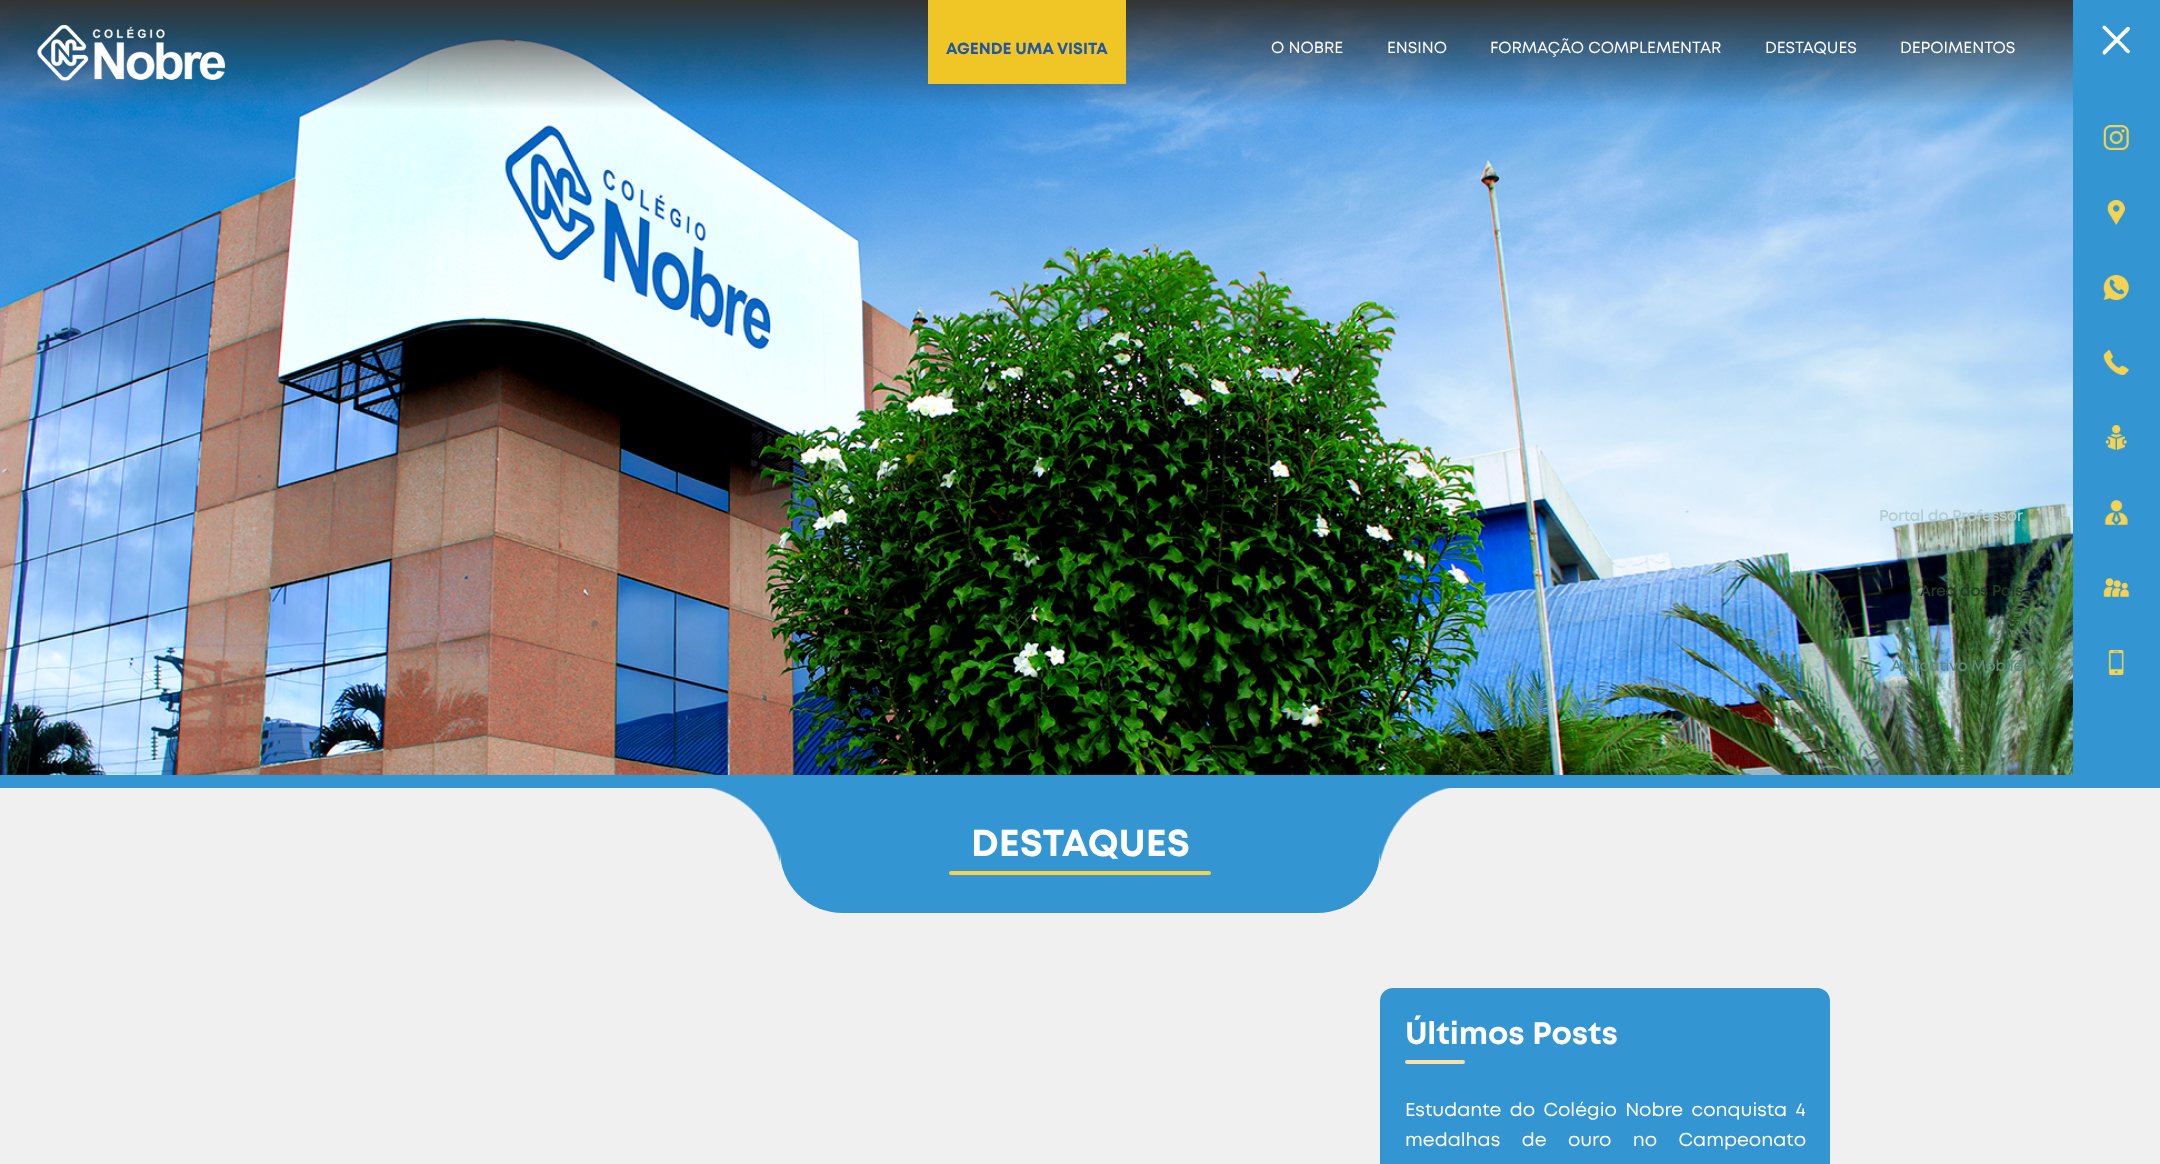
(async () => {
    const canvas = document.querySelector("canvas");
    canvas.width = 2160;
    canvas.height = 1164;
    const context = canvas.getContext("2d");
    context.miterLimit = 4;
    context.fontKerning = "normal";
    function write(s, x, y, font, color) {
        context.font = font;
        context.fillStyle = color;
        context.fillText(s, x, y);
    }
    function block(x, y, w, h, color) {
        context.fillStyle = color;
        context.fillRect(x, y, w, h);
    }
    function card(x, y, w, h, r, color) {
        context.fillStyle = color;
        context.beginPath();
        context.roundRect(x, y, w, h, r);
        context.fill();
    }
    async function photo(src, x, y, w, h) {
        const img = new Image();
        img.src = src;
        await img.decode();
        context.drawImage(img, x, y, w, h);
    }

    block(0, 0, 2160, 1164, "rgb(240, 240, 240)");
    await photo("media/1.png", 0, 0, 2073, 775);
    await photo("media/2.png", 37, 25, 188, 57);
    block(928, 0, 198, 84, "rgb(240, 197, 38)");
    write("AGENDE UMA VISITA", 946, 54, "bold 16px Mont", "rgb(33, 87, 164)");
    write("O NOBRE", 1271, 53, "16px Mont", "rgb(255, 255, 255)");
    write("ENSINO", 1387, 53, "16px Mont", "rgb(255, 255, 255)");
    write("FORMAÇÃO COMPLEMENTAR", 1490, 53, "16px Mont", "rgb(255, 255, 255)");
    write("DESTAQUES", 1765, 53, "16px Mont", "rgb(255, 255, 255)");
    write("DEPOIMENTOS", 1900, 53, "16px Mont", "rgb(255, 255, 255)");
    block(2073, 0, 87, 775, "rgb(51, 149, 209)");
    context.fillStyle = "rgb(255, 255, 255)";
    context.beginPath();
    context.moveTo(2105.5, 26);
    context.lineTo(2129.5, 50.5);
    context.lineTo(2130, 51.5);
    context.bezierCurveTo(2130, 52, 2129.5, 52.5, 2129, 53);
    context.bezierCurveTo(2127, 54.5, 2123.5, 49, 2123, 48.5);
    context.lineTo(2102.5, 28);
    context.bezierCurveTo(2102, 27, 2103, 25.5, 2104.5, 25.5);
    context.closePath();
    context.fill();
    context.beginPath();
    context.moveTo(2103, 51);
    context.lineTo(2127, 27);
    context.lineTo(2128, 27);
    context.bezierCurveTo(2129, 27, 2129.5, 27, 2129.5, 27.5);
    context.bezierCurveTo(2131.5, 30, 2126, 33.5, 2125.5, 34);
    context.lineTo(2105, 54.5);
    context.bezierCurveTo(2104, 55, 2102.5, 54, 2102.5, 52.5);
    context.closePath();
    context.fill();
    await photo("media/3.png", 2103, 125, 26, 25);
    await photo("media/4.png", 2107, 200, 18, 25);
    await photo("media/5.png", 2103, 275, 26, 25);
    await photo("media/6.png", 2103, 350, 26, 25);
    await photo("media/7.png", 2105, 425, 23, 25);
    write("Portal do Professor", 1879, 521, "bold 15px 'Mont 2'", "rgb(179, 204, 209)");
    await photo("media/8.png", 2104, 500, 24, 25);
    write("Area dos Pais", 1920, 596, "bold 15px 'Mont 2'", "rgb(35, 59, 37)");
    await photo("media/9.png", 2103, 578, 26, 19);
    write("Aplicativo Mobile", 1891, 671, "bold 15px 'Mont 2'", "rgb(95, 137, 122)");
    await photo("media/10.png", 2108, 650, 16, 25);
    block(0, 775, 2160, 13, "rgb(51, 149, 209)");
    await photo("media/11.png", 707, 788, 73, 75);
    context.beginPath();
    context.roundRect(780, 788, 600, 125, [0, 0, 62.5, 62.5]);
    context.fill();
    write("DESTAQUES", 971, 856, "bold 37.5px Mont", "rgb(255, 255, 255)");
    card(949, 871, 262, 4, 2, "rgb(244, 211, 82)");
    await photo("media/12.png", 1380, 788, 73, 75);
    card(1380, 988, 450, 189, 13, "rgb(51, 149, 209)");
    write("Últimos Posts", 1405, 1044, "bold 31.25px Mont", "rgb(255, 255, 255)");
    card(1405, 1060, 60, 4, 2, "rgb(254, 224, 165)");
    context.wordSpacing = "3.5px";
    write("Estudante do Colégio Nobre conquista 4", 1405, 1116, "18.75px Mont", "rgb(255, 255, 255)");
    context.wordSpacing = "16.5px";
    write("medalhas de ouro no Campeonato", 1405, 1146, "18.75px Mont", "rgb(255, 255, 255)");
})();
